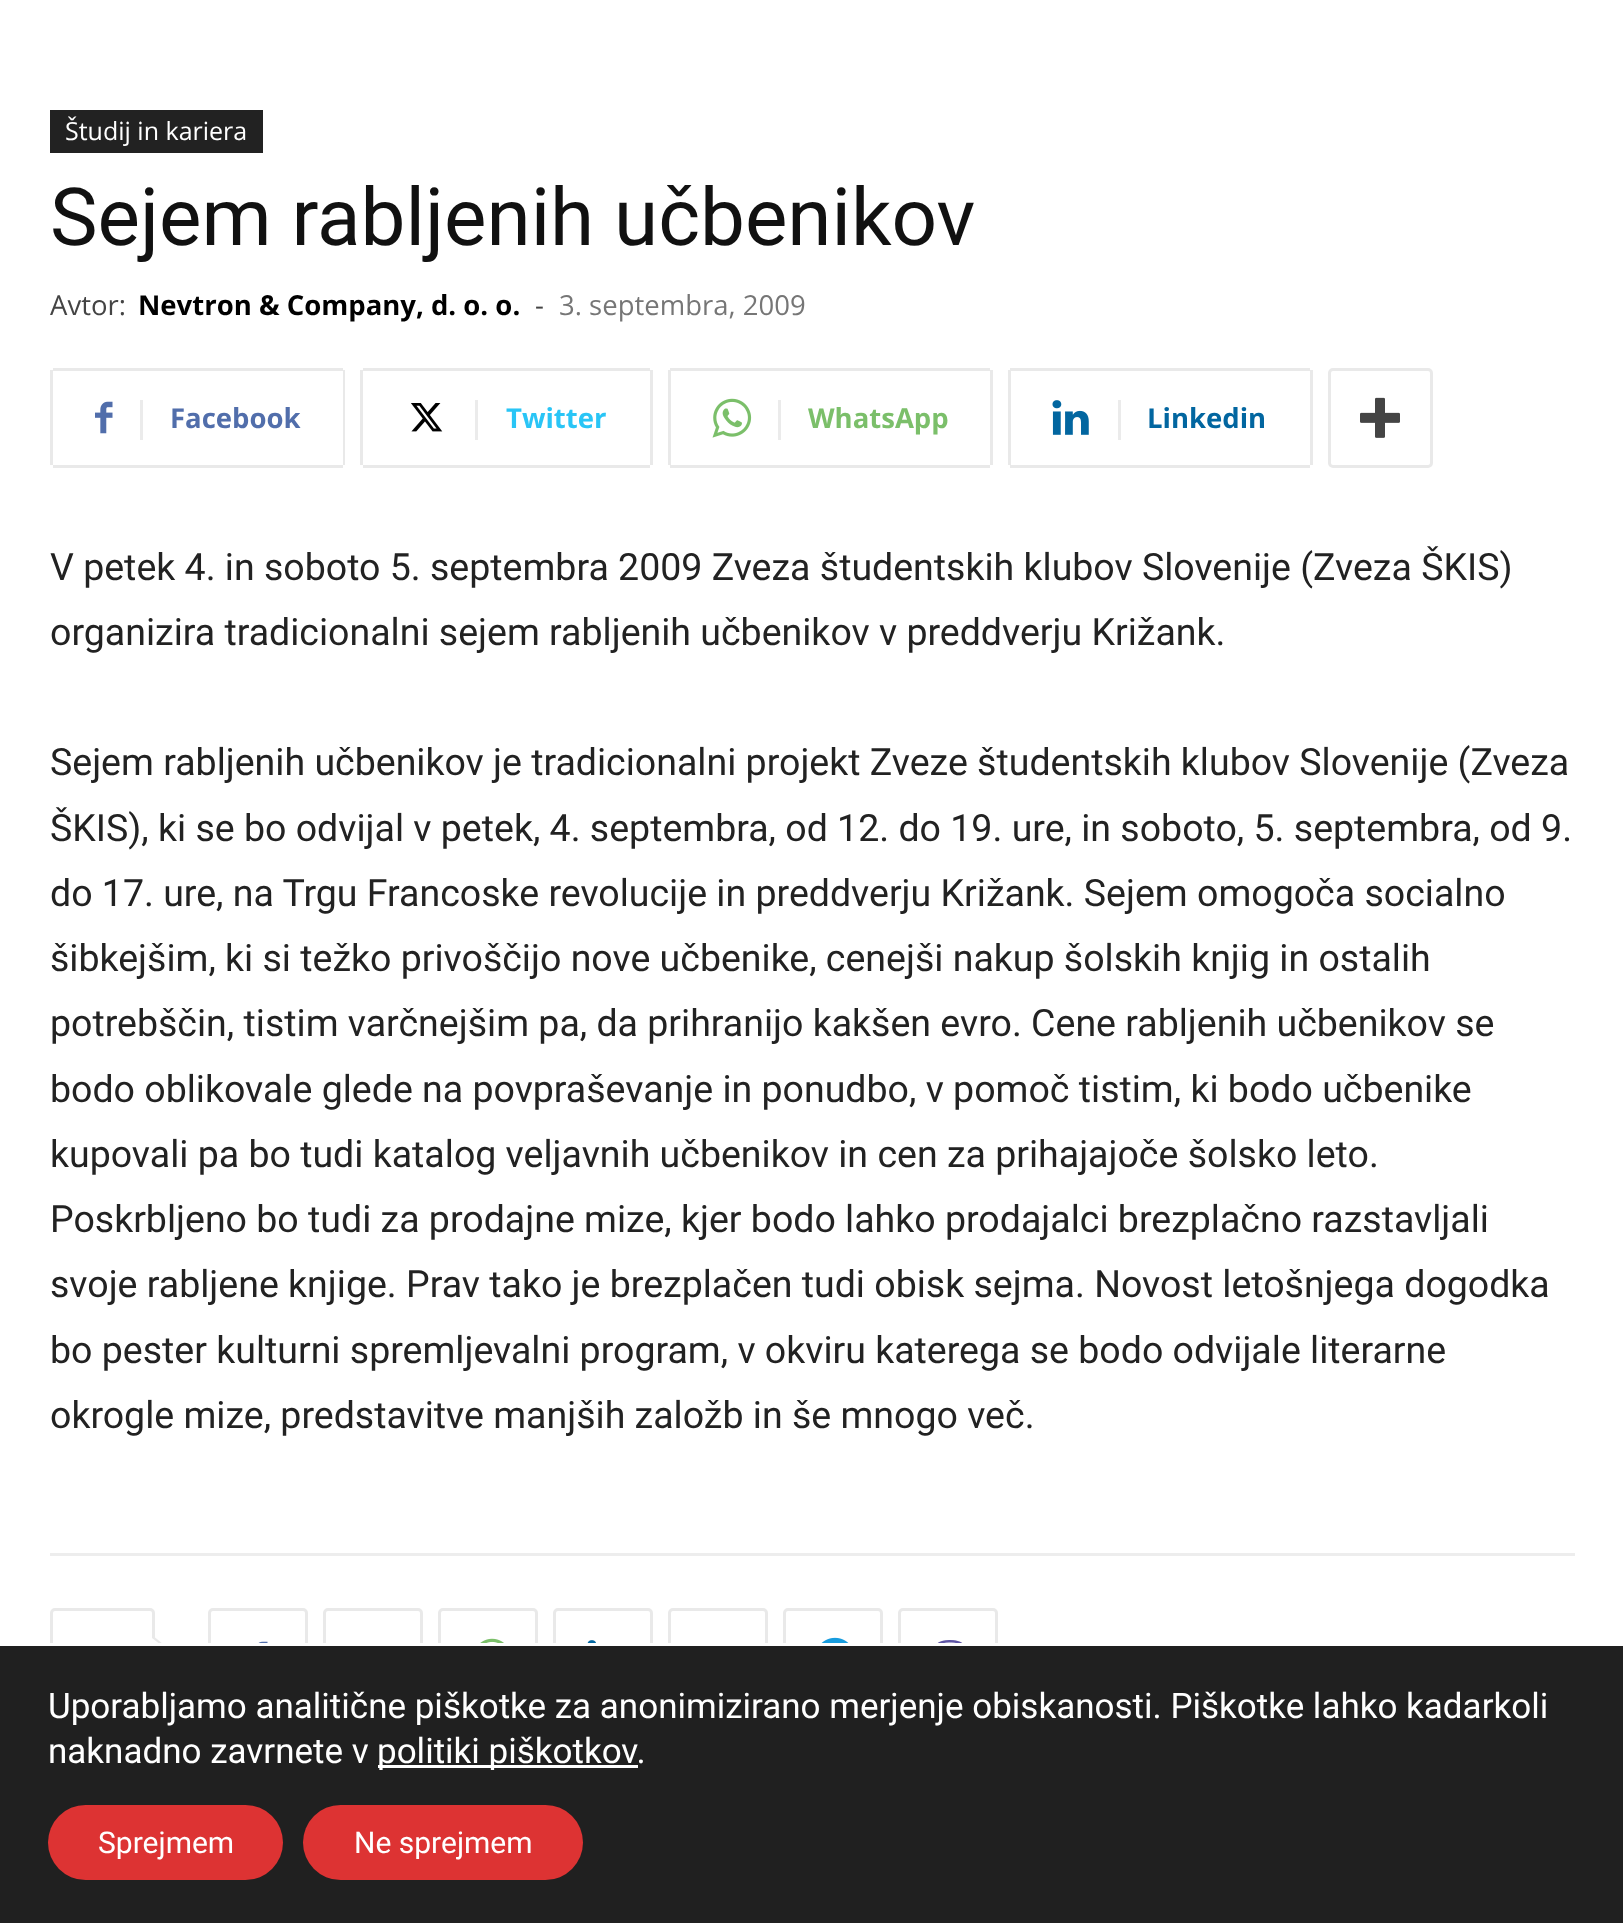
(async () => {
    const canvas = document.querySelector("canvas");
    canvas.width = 1623;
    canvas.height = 1923;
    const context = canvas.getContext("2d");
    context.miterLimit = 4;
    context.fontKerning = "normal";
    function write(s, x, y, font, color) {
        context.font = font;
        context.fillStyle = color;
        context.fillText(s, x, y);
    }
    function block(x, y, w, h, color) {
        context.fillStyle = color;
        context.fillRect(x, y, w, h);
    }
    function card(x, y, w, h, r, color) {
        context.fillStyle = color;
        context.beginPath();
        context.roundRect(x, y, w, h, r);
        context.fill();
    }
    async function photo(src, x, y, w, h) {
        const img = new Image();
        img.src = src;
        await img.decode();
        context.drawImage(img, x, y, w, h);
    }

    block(0, 0, 1623, 1923, "rgb(255, 255, 255)");
    block(50, 110, 213, 43, "rgb(34, 34, 34)");
    write("Študij in kariera", 65, 140, "25px Open Sans", "rgb(255, 255, 255)");
    write("Sejem rabljenih učbenikov", 50, 245, "80px Roboto", "rgb(17, 17, 17)");
    write("Avtor:", 50, 315, "27.5px Open Sans", "rgb(68, 68, 68)");
    write("Nevtron & Company, d. o. o.", 138, 315, "bold 27.5px Open Sans", "rgb(0, 0, 0)");
    write("-", 535, 315, "27.5px Open Sans", "rgb(68, 68, 68)");
    write("3. septembra, 2009", 559, 315, "27.5px Open Sans", "rgb(118, 118, 118)");
    block(50, 370, 3, 95, "rgb(233, 233, 233)");
    await photo("media/1.png", 95, 401, 18, 33);
    block(53, 368, 290, 3, "rgb(233, 233, 233)");
    block(343, 370, 2, 95, "rgb(233, 233, 233)");
    block(53, 465, 290, 3, "rgb(233, 233, 233)");
    block(140, 400, 3, 40, "rgb(235, 235, 235)");
    write("Facebook", 170, 428, "bold 27.5px Open Sans", "rgb(81, 110, 171)");
    block(360, 370, 3, 95, "rgb(233, 233, 233)");
    await photo("media/2.png", 411, 403, 32, 29);
    block(363, 368, 287, 3, "rgb(233, 233, 233)");
    block(650, 370, 3, 95, "rgb(233, 233, 233)");
    block(363, 465, 287, 3, "rgb(233, 233, 233)");
    block(475, 400, 3, 40, "rgb(235, 235, 235)");
    write("Twitter", 506, 428, "bold 27.5px Open Sans", "rgb(41, 197, 246)");
    block(670, 368, 320, 3, "rgb(233, 233, 233)");
    block(668, 370, 3, 95, "rgb(233, 233, 233)");
    await photo("media/3.png", 712, 398, 40, 40);
    block(990, 370, 3, 95, "rgb(233, 233, 233)");
    block(670, 465, 320, 3, "rgb(233, 233, 233)");
    block(778, 400, 3, 40, "rgb(235, 235, 235)");
    write("WhatsApp", 808, 428, "bold 27.5px Open Sans", "rgb(123, 191, 106)");
    block(1010, 368, 300, 3, "rgb(233, 233, 233)");
    block(1008, 370, 3, 95, "rgb(233, 233, 233)");
    await photo("media/4.png", 1052, 400, 37, 35);
    block(1310, 370, 3, 95, "rgb(233, 233, 233)");
    block(1010, 465, 300, 3, "rgb(233, 233, 233)");
    block(1118, 400, 3, 40, "rgb(235, 235, 235)");
    write("Linkedin", 1147, 428, "bold 27.5px Open Sans", "rgb(2, 102, 160)");
    context.beginPath();
    context.roundRect(1329.5, 369.5, 102, 97, 3.5);
    context.strokeStyle = "rgb(233, 233, 233)";
    context.lineWidth = 3;
    context.stroke();
    await photo("media/5.png", 1360, 397, 40, 41);
    write("V petek 4. in soboto 5. septembra 2009 Zveza študentskih klubov Slovenije (Zveza ŠKIS)", 50, 580, "37.5px Roboto", "rgb(34, 34, 34)");
    write("organizira tradicionalni sejem rabljenih učbenikov v preddverju Križank.", 50, 645, "37.5px Roboto", "rgb(34, 34, 34)");
    write("Sejem rabljenih učbenikov je tradicionalni projekt Zveze študentskih klubov Slovenije (Zveza", 50, 775, "37.5px Roboto", "rgb(34, 34, 34)");
    write("ŠKIS), ki se bo odvijal v petek, 4. septembra, od 12. do 19. ure, in soboto, 5. septembra, od 9.", 50, 841, "37.5px Roboto", "rgb(34, 34, 34)");
    write("do 17. ure, na Trgu Francoske revolucije in preddverju Križank. Sejem omogoča socialno", 50, 906, "37.5px Roboto", "rgb(34, 34, 34)");
    write("šibkejšim, ki si težko privoščijo nove učbenike, cenejši nakup šolskih knjig in ostalih", 50, 971, "37.5px Roboto", "rgb(34, 34, 34)");
    write("potrebščin, tistim varčnejšim pa, da prihranijo kakšen evro. Cene rabljenih učbenikov se", 50, 1036, "37.5px Roboto", "rgb(34, 34, 34)");
    write("bodo oblikovale glede na povpraševanje in ponudbo, v pomoč tistim, ki bodo učbenike", 50, 1102, "37.5px Roboto", "rgb(34, 34, 34)");
    write("kupovali pa bo tudi katalog veljavnih učbenikov in cen za prihajajoče šolsko leto.", 50, 1167, "37.5px Roboto", "rgb(34, 34, 34)");
    write("Poskrbljeno bo tudi za prodajne mize, kjer bodo lahko prodajalci brezplačno razstavljali", 50, 1232, "37.5px Roboto", "rgb(34, 34, 34)");
    write("svoje rabljene knjige. Prav tako je brezplačen tudi obisk sejma. Novost letošnjega dogodka", 50, 1297, "37.5px Roboto", "rgb(34, 34, 34)");
    write("bo pester kulturni spremljevalni program, v okviru katerega se bodo odvijale literarne", 50, 1363, "37.5px Roboto", "rgb(34, 34, 34)");
    write("okrogle mize, predstavitve manjših založb in še mnogo več.", 50, 1428, "37.5px Roboto", "rgb(34, 34, 34)");
    block(50, 1553, 1525, 3, "rgb(237, 237, 237)");
    context.beginPath();
    context.roundRect(51.5, 1609.5, 102, 97, 3.5);
    context.stroke();
    context.fillStyle = "rgb(233, 233, 233)";
    context.beginPath();
    context.moveTo(152, 1680);
    context.lineTo(152, 1635);
    context.lineTo(180, 1658);
    context.closePath();
    context.fill();
    context.fillStyle = "rgb(255, 255, 255)";
    context.beginPath();
    context.moveTo(152, 1678);
    context.lineTo(152, 1638);
    context.lineTo(178, 1658);
    context.closePath();
    context.fill();
    context.beginPath();
    context.roundRect(209.5, 1609.5, 97, 97, 3.5);
    context.stroke();
    await photo("media/6.png", 258, 1641, 10, 2);
    context.beginPath();
    context.roundRect(324.5, 1609.5, 97, 97, 3.5);
    context.stroke();
    context.beginPath();
    context.roundRect(439.5, 1609.5, 97, 97, 3.5);
    context.stroke();
    await photo("media/7.png", 480, 1638, 24, 5);
    context.beginPath();
    context.roundRect(554.5, 1609.5, 97, 97, 3.5);
    context.stroke();
    await photo("media/8.png", 587, 1640, 9, 3);
    context.beginPath();
    context.roundRect(669.5, 1609.5, 97, 97, 3.5);
    context.stroke();
    context.beginPath();
    context.roundRect(784.5, 1609.5, 97, 97, 3.5);
    context.stroke();
    await photo("media/9.png", 821, 1637, 28, 6);
    context.beginPath();
    context.roundRect(899.5, 1609.5, 97, 97, 3.5);
    context.stroke();
    await photo("media/10.png", 937, 1640, 26, 3);
    block(0, 1646, 1623, 277, "rgb(32, 32, 32)");
    block(50, 1643, 948, 3, "rgb(255, 255, 255)");
    write("Uporabljamo analitične piškotke za anonimizirano merjenje obiskanosti. Piškotke lahko kadarkoli", 48, 1718, "35px Roboto", "rgb(255, 255, 255)");
    write("naknadno zavrnete v", 48, 1763, "35px Roboto", "rgb(255, 255, 255)");
    block(378, 1765, 260, 3, "rgb(255, 255, 255)");
    write("politiki piškotkov.", 377, 1763, "35px Roboto", "rgb(255, 255, 255)");
    card(48, 1805, 235, 75, 37.5, "rgb(221, 51, 51)");
    write("Sprejmem", 98, 1853, "30px Roboto", "rgb(255, 255, 255)");
    card(303, 1805, 280, 75, 37.5, "rgb(221, 51, 51)");
    write("Ne sprejmem", 354, 1853, "30px Roboto", "rgb(255, 255, 255)");
})();
